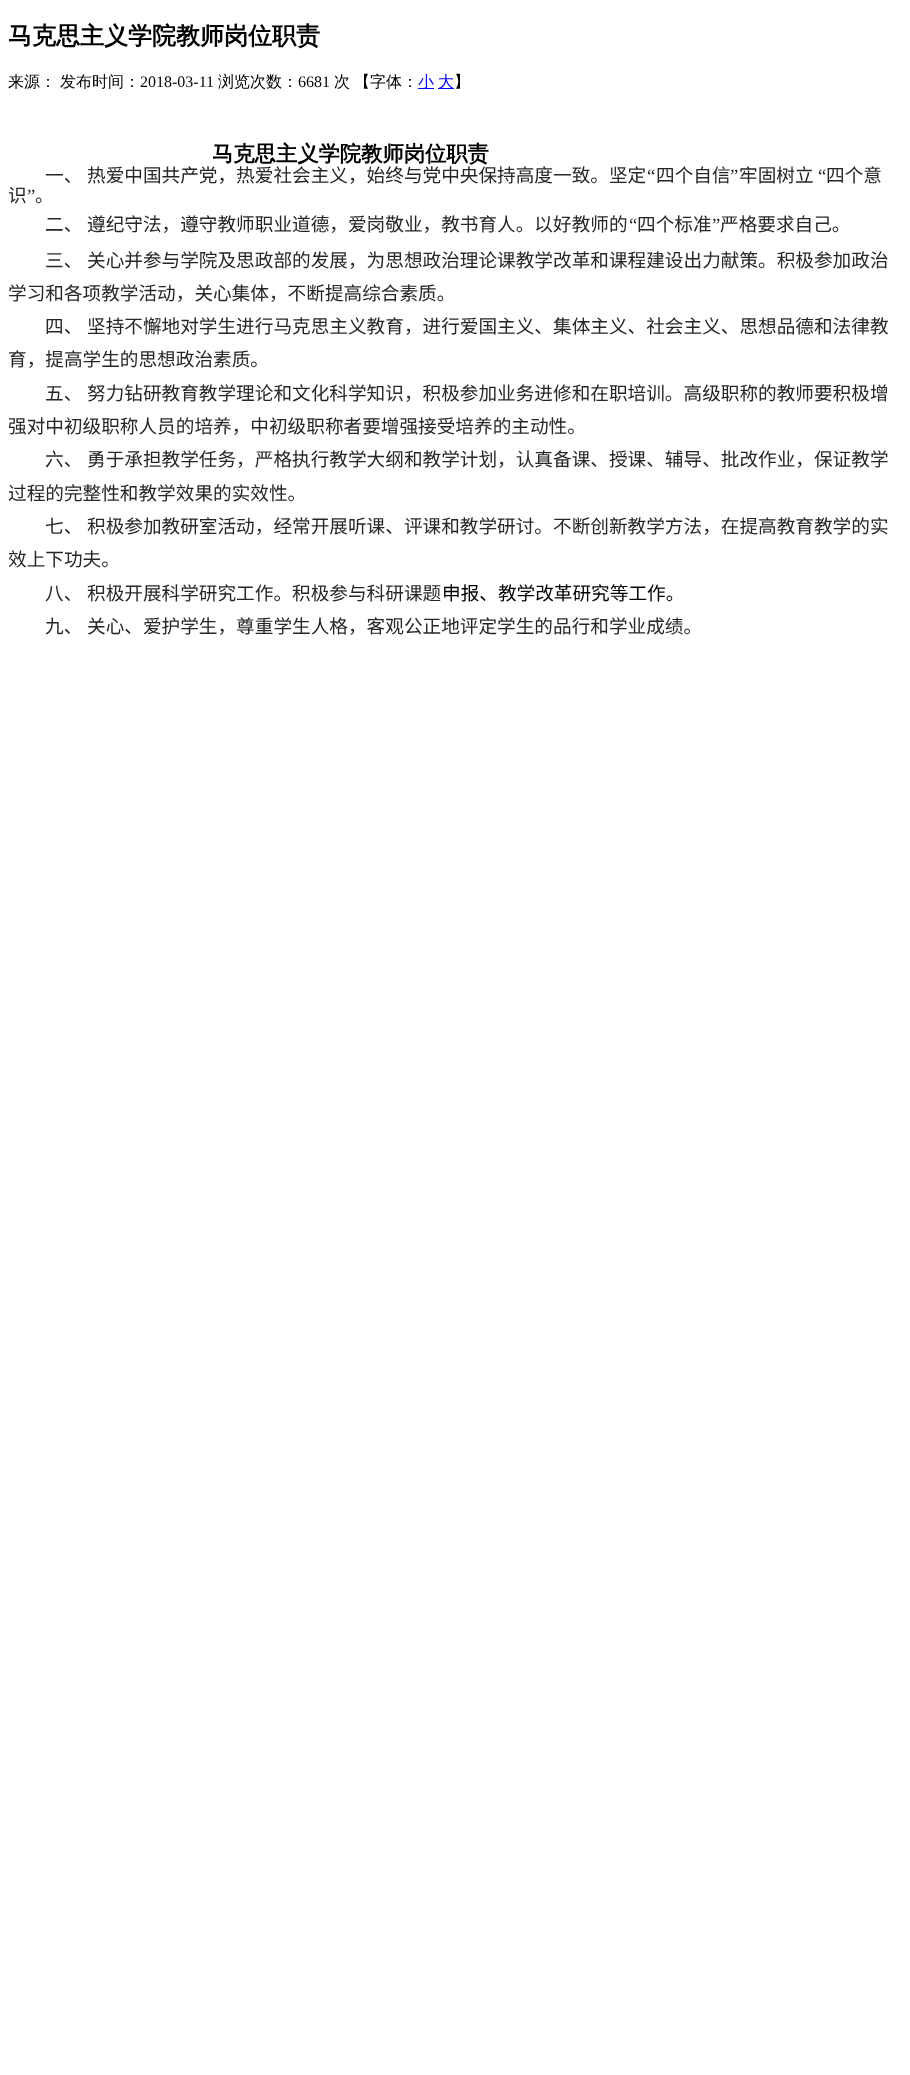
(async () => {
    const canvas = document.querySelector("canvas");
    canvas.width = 910;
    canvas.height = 2075;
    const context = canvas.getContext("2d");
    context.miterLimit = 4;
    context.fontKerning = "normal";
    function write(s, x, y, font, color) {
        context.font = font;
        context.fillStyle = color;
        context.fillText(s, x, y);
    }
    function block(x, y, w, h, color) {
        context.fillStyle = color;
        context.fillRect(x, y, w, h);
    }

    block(0, 0, 910, 2075, "rgb(255, 255, 255)");
    write("马克思主义学院教师岗位职责", 8, 44, "bold 24px WenQuanYi Zen Hei", "rgb(0, 0, 0)");
    write("来源：", 8, 87, "500 16px WenQuanYi Zen Hei", "rgb(0, 0, 0)");
    write("发布时间：", 60, 87, "500 16px WenQuanYi Zen Hei", "rgb(0, 0, 0)");
    write("2018-03-11", 140, 87, "16px Liberation Serif", "rgb(0, 0, 0)");
    write("浏览次数：", 218, 87, "500 16px WenQuanYi Zen Hei", "rgb(0, 0, 0)");
    write("6681", 298, 87, "16px Liberation Serif", "rgb(0, 0, 0)");
    write("次", 334, 87, "500 16px WenQuanYi Zen Hei", "rgb(0, 0, 0)");
    write("【字体：", 354, 87, "500 16px WenQuanYi Zen Hei", "rgb(0, 0, 0)");
    block(418, 88, 16, 1, "rgb(0, 0, 238)");
    write("小", 418, 87, "500 16px WenQuanYi Zen Hei", "rgb(0, 0, 238)");
    block(438, 88, 16, 1, "rgb(0, 0, 238)");
    write("大", 438, 87, "500 16px WenQuanYi Zen Hei", "rgb(0, 0, 238)");
    write("】", 454, 87, "500 16px WenQuanYi Zen Hei", "rgb(0, 0, 0)");
    write("马克思主义学院教师岗位职责", 212, 161, "bold 21.3px WenQuanYi Zen Hei", "rgb(0, 0, 0)");
    write("热爱中国共产党，热爱社会主义，始终与党中央保持高度一致。坚定", 87, 182, "18.65px Noto Sans CJK SC", "rgb(38, 38, 38)");
    write("“", 647, 182, "18.65px Liberation Serif", "rgb(38, 38, 38)");
    write("四个自信", 656, 182, "18.65px Noto Sans CJK SC", "rgb(38, 38, 38)");
    write("”", 730, 182, "18.65px Liberation Serif", "rgb(38, 38, 38)");
    write("牢固树立", 739, 182, "18.65px Noto Sans CJK SC", "rgb(38, 38, 38)");
    write("“", 818, 182, "18.65px Liberation Serif", "rgb(38, 38, 38)");
    write("四个意", 826, 182, "18.65px Noto Sans CJK SC", "rgb(38, 38, 38)");
    write("一、", 45, 182, "18.65px Noto Sans CJK SC", "rgb(38, 38, 38)");
    write("识", 8, 202, "18.65px Noto Sans CJK SC", "rgb(38, 38, 38)");
    write("”", 27, 202, "18.65px Liberation Serif", "rgb(38, 38, 38)");
    write("。", 35, 202, "18.65px Noto Sans CJK SC", "rgb(38, 38, 38)");
    write("二、", 45, 231, "18.65px Noto Sans CJK SC", "rgb(38, 38, 38)");
    write("遵纪守法，遵守教师职业道德，爱岗敬业，教书育人。以好教师的", 87, 231, "18.65px Noto Sans CJK SC", "rgb(38, 38, 38)");
    write("“", 629, 231, "18.65px Liberation Serif", "rgb(38, 38, 38)");
    write("四个标准", 637, 231, "18.65px Noto Sans CJK SC", "rgb(38, 38, 38)");
    write("”", 712, 231, "18.65px Liberation Serif", "rgb(38, 38, 38)");
    write("严格要求自己。", 720, 231, "18.65px Noto Sans CJK SC", "rgb(38, 38, 38)");
    write("三、", 45, 267, "18.65px Noto Sans CJK SC", "rgb(38, 38, 38)");
    write("关心并参与学院及思政部的发展，为思想政治理论课教学改革和课程建设出力献策。积极参加政治", 87, 267, "18.65px Noto Sans CJK SC", "rgb(38, 38, 38)");
    write("学习和各项教学活动，关心集体，不断提高综合素质。", 8, 300, "18.65px Noto Sans CJK SC", "rgb(38, 38, 38)");
    write("四、", 45, 333, "18.65px Noto Sans CJK SC", "rgb(38, 38, 38)");
    write("坚持不懈地对学生进行马克思主义教育，进行爱国主义、集体主义、社会主义、思想品德和法律教", 87, 333, "18.65px Noto Sans CJK SC", "rgb(38, 38, 38)");
    write("育，提高学生的思想政治素质。", 8, 366, "18.65px Noto Sans CJK SC", "rgb(38, 38, 38)");
    write("五、", 45, 400, "18.65px Noto Sans CJK SC", "rgb(38, 38, 38)");
    write("努力钻研教育教学理论和文化科学知识，积极参加业务进修和在职培训。高级职称的教师要积极增", 87, 400, "18.65px Noto Sans CJK SC", "rgb(38, 38, 38)");
    write("强对中初级职称人员的培养，中初级职称者要增强接受培养的主动性。", 8, 433, "18.65px Noto Sans CJK SC", "rgb(38, 38, 38)");
    write("六、", 45, 466, "18.65px Noto Sans CJK SC", "rgb(38, 38, 38)");
    write("勇于承担教学任务，严格执行教学大纲和教学计划，认真备课、授课、辅导、批改作业，保证教学", 87, 466, "18.65px Noto Sans CJK SC", "rgb(38, 38, 38)");
    write("过程的完整性和教学效果的实效性。", 8, 500, "18.65px Noto Sans CJK SC", "rgb(38, 38, 38)");
    write("七、", 45, 533, "18.65px Noto Sans CJK SC", "rgb(38, 38, 38)");
    write("积极参加教研室活动，经常开展听课、评课和教学研讨。不断创新教学方法，在提高教育教学的实", 87, 533, "18.65px Noto Sans CJK SC", "rgb(38, 38, 38)");
    write("效上下功夫。", 8, 566, "18.65px Noto Sans CJK SC", "rgb(38, 38, 38)");
    write("八、", 45, 600, "18.65px Noto Sans CJK SC", "rgb(38, 38, 38)");
    write("积极开展科学研究工作。积极参与科研课题", 87, 600, "18.65px Noto Sans CJK SC", "rgb(38, 38, 38)");
    write("申报、教学改革研究等工作。", 442, 600, "18.65px Noto Sans CJK SC", "rgb(0, 0, 0)");
    write("九、", 45, 633, "18.65px Noto Sans CJK SC", "rgb(38, 38, 38)");
    write("关心、爱护学生，尊重学生人格，客观公正地评定学生的品行和学业成绩。", 87, 633, "18.65px Noto Sans CJK SC", "rgb(38, 38, 38)");
})();
